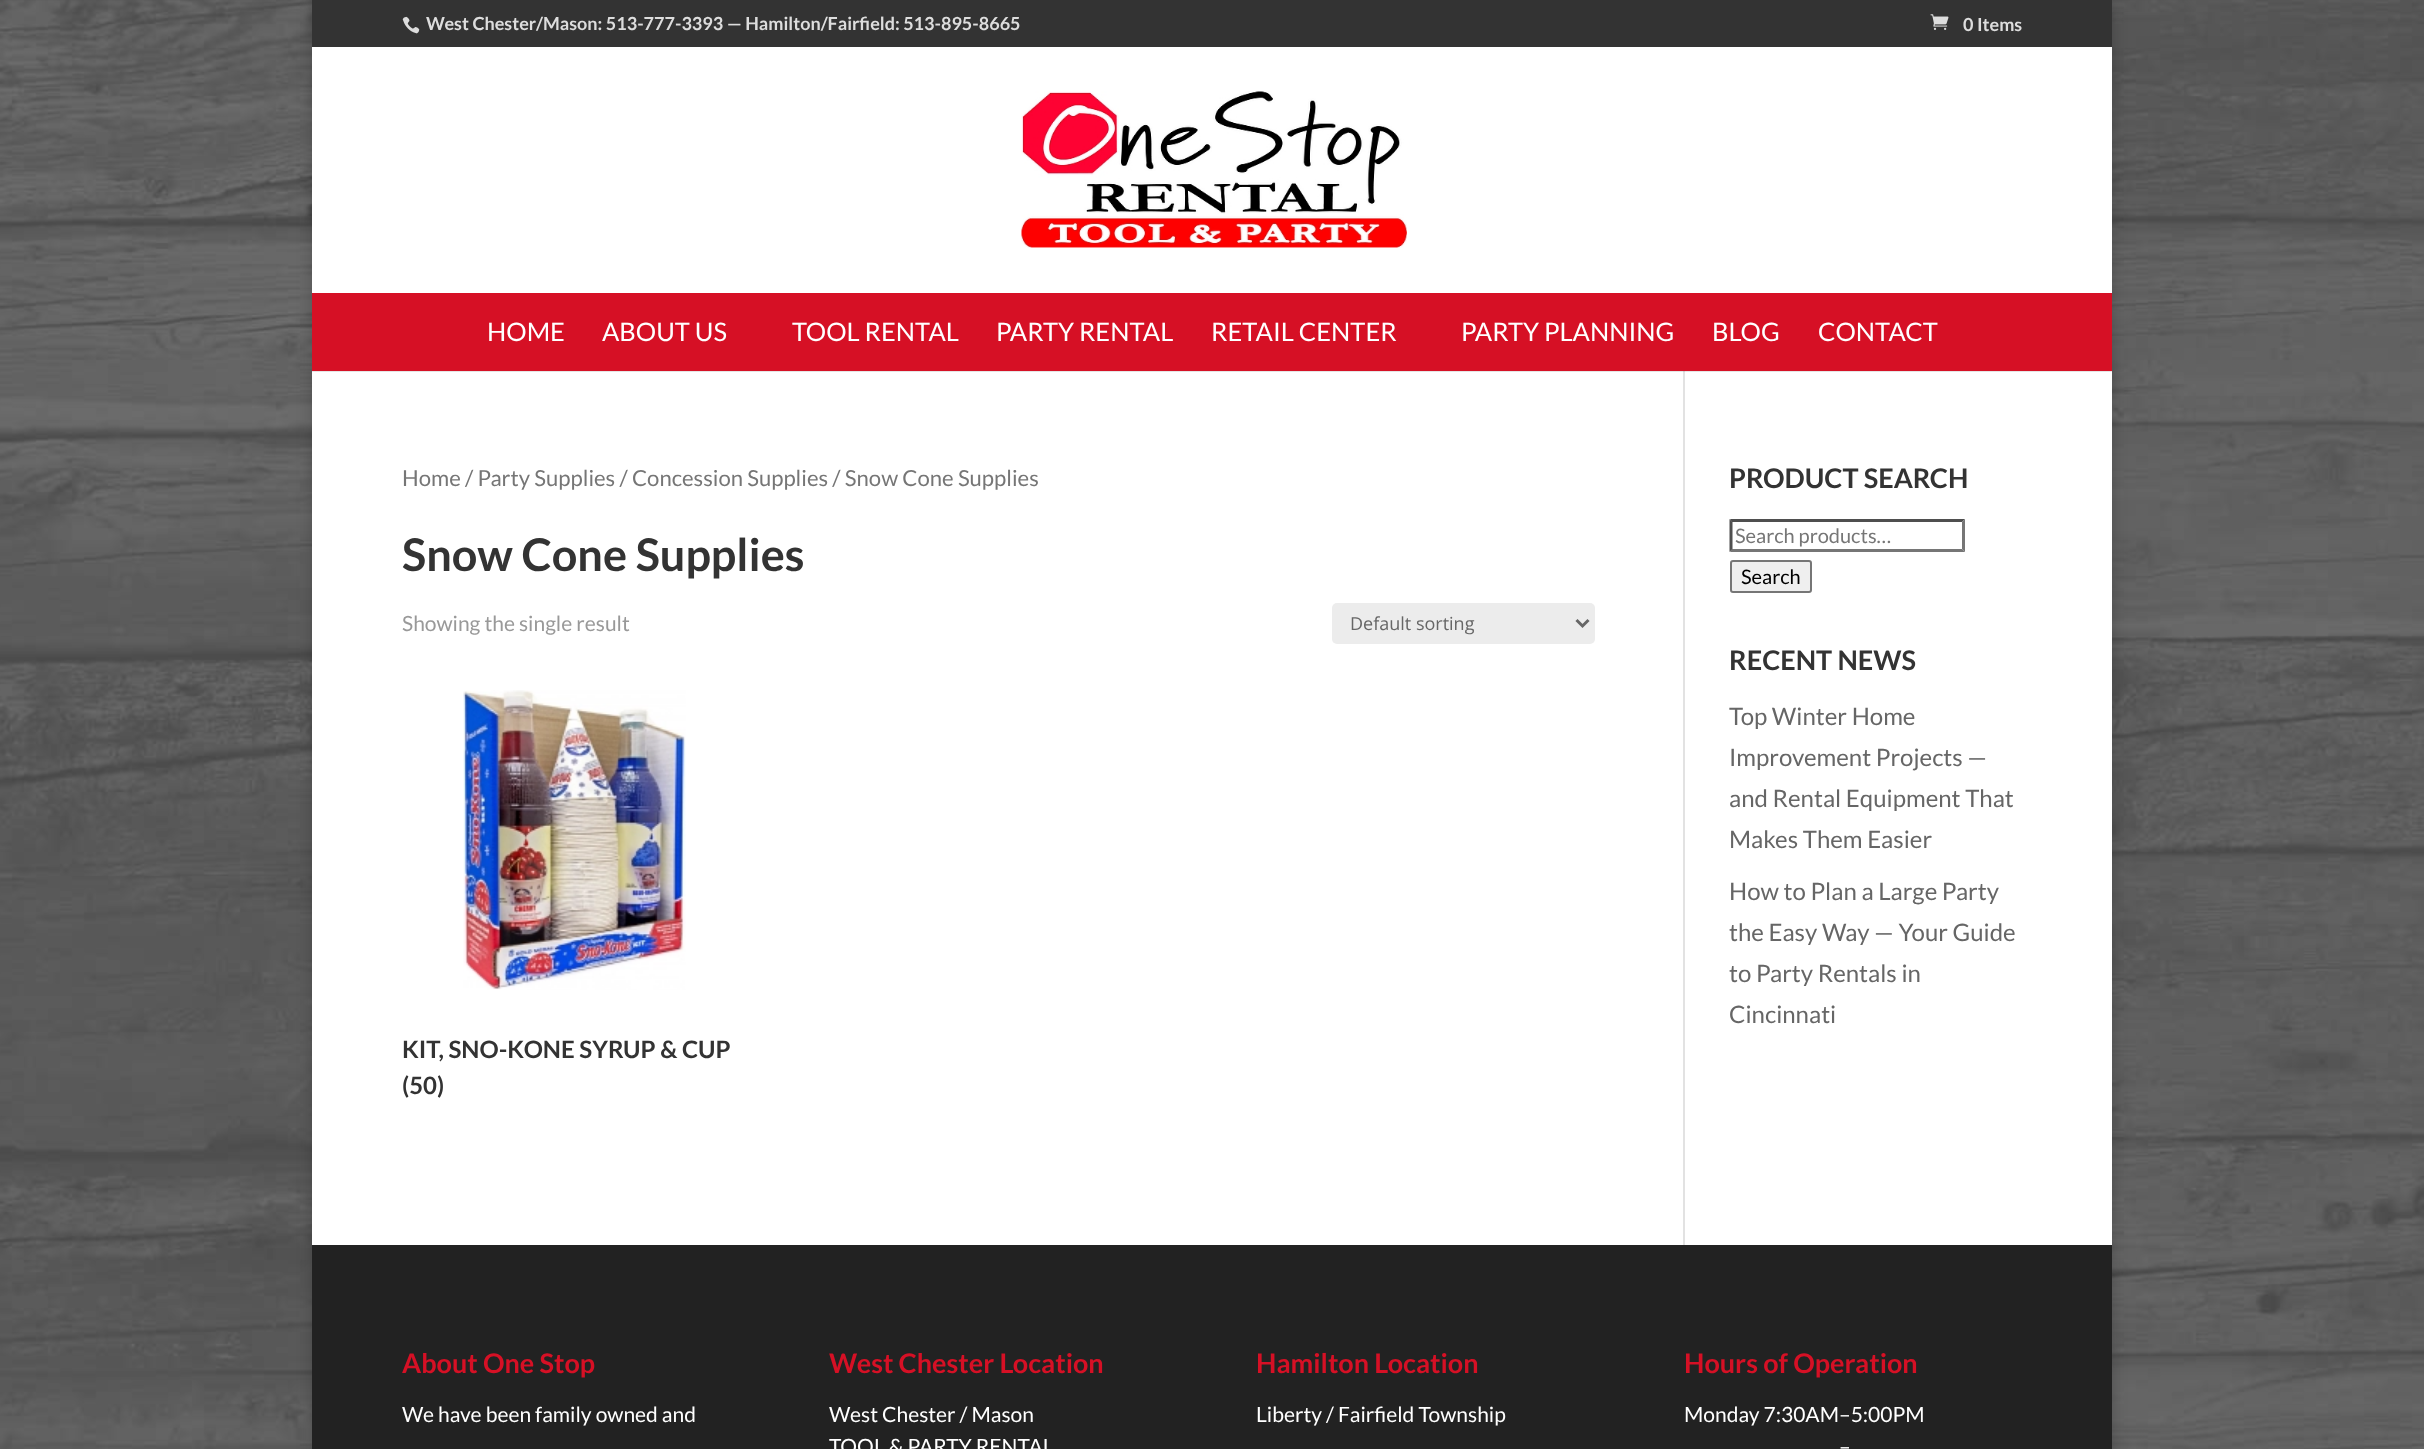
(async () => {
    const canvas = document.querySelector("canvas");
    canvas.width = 2424;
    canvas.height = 1449;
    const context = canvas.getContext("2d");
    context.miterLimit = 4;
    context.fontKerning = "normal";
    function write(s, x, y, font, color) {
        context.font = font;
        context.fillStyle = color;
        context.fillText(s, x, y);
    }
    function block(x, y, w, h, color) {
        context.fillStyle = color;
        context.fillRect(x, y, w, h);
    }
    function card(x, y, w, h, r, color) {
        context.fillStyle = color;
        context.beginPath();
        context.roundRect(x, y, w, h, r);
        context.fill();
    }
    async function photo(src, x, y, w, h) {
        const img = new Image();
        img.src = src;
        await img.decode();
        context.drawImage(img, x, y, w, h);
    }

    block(0, 0, 2424, 1449, "rgb(255, 255, 255)");
    await photo("media/1.png", 0, 0, 2424, 1449);
    context.fillStyle = "rgba(0, 0, 0, 0.2)";
    context.filter = "blur(7.5px)";
    context.beginPath();
    context.rect(312, 0, 1800, 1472);
    context.fill();
    context.filter = "none";
    block(312, 0, 1800, 47, "rgb(51, 51, 51)");
    await photo("media/2.png", 402, 16, 18, 18);
    write("West Chester/Mason: 513-777-3393 — Hamilton/Fairfield: 513-895-8665", 426, 30, "bold 18px Lato", "rgb(221, 221, 221)");
    await photo("media/3.png", 1930, 14, 19, 16);
    write("0 Items", 1963, 31, "bold 18px Lato", "rgb(221, 221, 221)");
    block(312, 371, 1800, 874, "rgb(255, 255, 255)");
    block(1683, 371, 2, 874, "rgb(226, 226, 226)");
    block(312, 371, 1800, 1, "rgba(0, 0, 0, 0.1)");
    block(312, 47, 1800, 246, "rgb(255, 255, 255)");
    await photo("media/4.png", 1021, 91, 386, 157);
    block(312, 293, 1800, 78, "rgb(214, 16, 37)");
    write("HOME", 487, 341, "25.5px Lato", "rgb(255, 255, 255)");
    write("ABOUT US", 602, 341, "25.5px Lato", "rgb(255, 255, 255)");
    write("TOOL RENTAL", 792, 341, "25.5px Lato", "rgb(255, 255, 255)");
    write("PARTY RENTAL", 996, 341, "25.5px Lato", "rgb(255, 255, 255)");
    write("RETAIL CENTER", 1211, 341, "25.5px Lato", "rgb(255, 255, 255)");
    write("PARTY PLANNING", 1461, 341, "25.5px Lato", "rgb(255, 255, 255)");
    write("BLOG", 1712, 341, "25.5px Lato", "rgb(255, 255, 255)");
    write("CONTACT", 1818, 341, "25.5px Lato", "rgb(255, 255, 255)");
    write("Home / Party Supplies / Concession Supplies / Snow Cone Supplies", 402, 486, "22.1px Lato", "rgb(118, 118, 118)");
    write("Snow Cone Supplies", 402, 571, "bold 45px Lato", "rgb(51, 51, 51)");
    write("Showing the single result", 402, 631, "21px Lato", "rgb(153, 153, 153)");
    card(1332, 603, 263, 41, 5, "rgb(236, 236, 236)");
    context.beginPath();
    context.moveTo(1576.5, 620);
    context.lineTo(1582.5, 626);
    context.lineTo(1588.5, 620);
    context.strokeStyle = "rgb(102, 102, 102)";
    context.lineWidth = 3;
    context.stroke();
    write("Default sorting", 1350, 630, "18px Open Sans", "rgb(102, 102, 102)");
    await photo("media/5.png", 463, 690, 223, 300);
    write("KIT, SNO-KONE SYRUP & CUP", 402, 1058, "bold 24px Lato", "rgb(51, 51, 51)");
    write("(50)", 402, 1094, "bold 24px Lato", "rgb(51, 51, 51)");
    write("PRODUCT SEARCH", 1729, 488, "bold 27px Lato", "rgb(51, 51, 51)");
    context.fillStyle = "rgb(79, 79, 79)";
    context.beginPath();
    context.moveTo(1730, 519);
    context.lineTo(1965, 519);
    context.lineTo(1962, 522);
    context.lineTo(1732, 522);
    context.closePath();
    context.fill();
    context.fillStyle = "rgb(118, 118, 118)";
    context.beginPath();
    context.moveTo(1965, 519);
    context.lineTo(1965, 552);
    context.lineTo(1962, 549);
    context.lineTo(1962, 522);
    context.closePath();
    context.fill();
    context.beginPath();
    context.moveTo(1965, 552);
    context.lineTo(1730, 552);
    context.lineTo(1732, 549);
    context.lineTo(1962, 549);
    context.closePath();
    context.fill();
    context.fillStyle = "rgb(79, 79, 79)";
    context.beginPath();
    context.moveTo(1729.5, 552);
    context.lineTo(1729.5, 519);
    context.lineTo(1732.5, 522);
    context.lineTo(1732.5, 549);
    context.closePath();
    context.fill();
    write("Search products…", 1735, 543, "20px Lato", "rgb(118, 118, 118)");
    context.fillStyle = "rgb(239, 239, 239)";
    context.beginPath();
    context.roundRect(1731, 561, 80, 31, 2);
    context.fill();
    context.strokeStyle = "rgb(118, 118, 118)";
    context.lineWidth = 2;
    context.stroke();
    write("Search", 1741, 584, "20px Lato", "rgb(0, 0, 0)");
    write("RECENT NEWS", 1729, 670, "bold 27px Lato", "rgb(51, 51, 51)");
    write("Top Winter Home", 1729, 725, "24px Lato", "rgb(102, 102, 102)");
    write("Improvement Projects —", 1729, 766, "24px Lato", "rgb(102, 102, 102)");
    write("and Rental Equipment That", 1729, 807, "24px Lato", "rgb(102, 102, 102)");
    write("Makes Them Easier", 1729, 848, "24px Lato", "rgb(102, 102, 102)");
    write("How to Plan a Large Party", 1729, 900, "24px Lato", "rgb(102, 102, 102)");
    write("the Easy Way — Your Guide", 1729, 941, "24px Lato", "rgb(102, 102, 102)");
    write("to Party Rentals in", 1729, 982, "24px Lato", "rgb(102, 102, 102)");
    write("Cincinnati", 1729, 1023, "24px Lato", "rgb(102, 102, 102)");
    block(312, 1245, 1800, 204, "rgb(34, 34, 34)");
    write("About One Stop", 402, 1373, "bold 27px Lato", "rgb(214, 16, 37)");
    write("We have been family owned and", 402, 1422, "21px Lato", "rgb(255, 255, 255)");
    write("West Chester Location", 829, 1373, "bold 27px Lato", "rgb(214, 16, 37)");
    write("West Chester / Mason", 829, 1422, "21px Lato", "rgb(255, 255, 255)");
    write("TOOL & PARTY RENTAL", 829, 1454, "21px Lato", "rgb(255, 255, 255)");
    write("Hamilton Location", 1256, 1373, "bold 27px Lato", "rgb(214, 16, 37)");
    write("Liberty / Fairfield Township", 1256, 1422, "21px Lato", "rgb(255, 255, 255)");
    write("Hours of Operation", 1684, 1373, "bold 27px Lato", "rgb(214, 16, 37)");
    write("Monday 7:30AM–5:00PM", 1684, 1422, "21px Lato", "rgb(255, 255, 255)");
    write("–", 1839, 1454, "21px Lato", "rgb(255, 255, 255)");
})();
